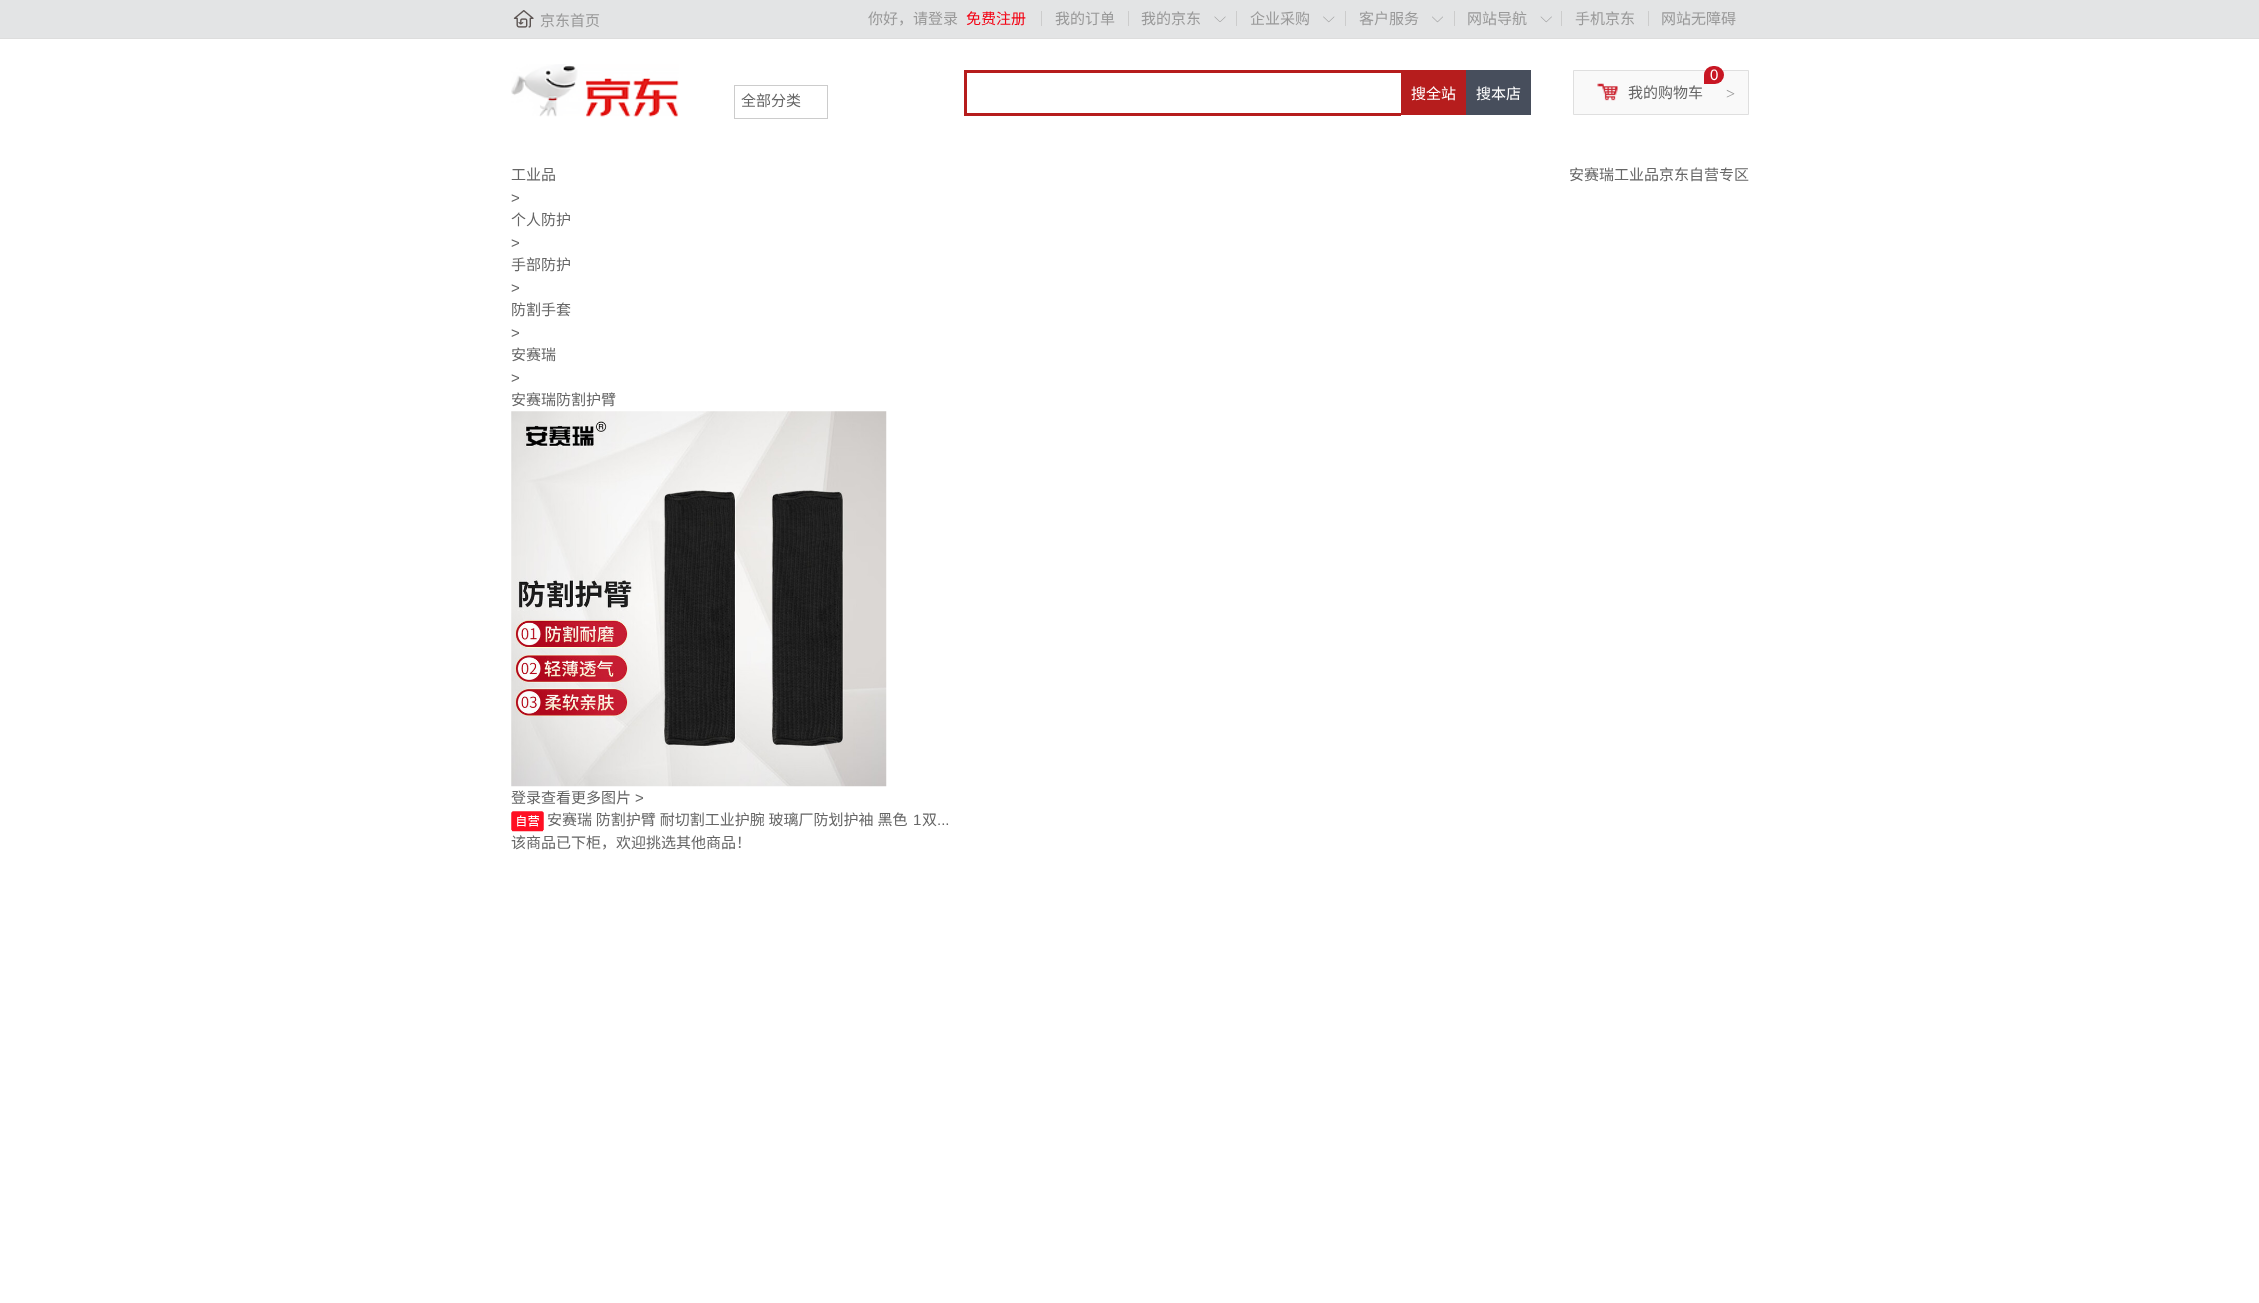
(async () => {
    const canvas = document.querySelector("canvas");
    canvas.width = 2259;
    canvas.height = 1303;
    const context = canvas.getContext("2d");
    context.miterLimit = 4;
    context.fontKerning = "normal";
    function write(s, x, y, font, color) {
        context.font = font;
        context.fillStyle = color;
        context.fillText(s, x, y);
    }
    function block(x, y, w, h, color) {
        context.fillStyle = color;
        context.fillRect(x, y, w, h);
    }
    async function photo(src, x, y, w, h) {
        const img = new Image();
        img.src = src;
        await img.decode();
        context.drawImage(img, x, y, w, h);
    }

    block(0, 0, 2259, 1303, "rgb(255, 255, 255)");
    block(0, 0, 2259, 38, "rgb(227, 228, 229)");
    block(0, 38, 2259, 1, "rgb(221, 221, 221)");
    await photo("media/1.png", 513, 10, 21, 18);
    write("京东首页", 540, 26, "15px Noto Sans CJK SC", "rgb(153, 153, 153)");
    write("你好，请登录", 868, 24, "15px Noto Sans CJK SC", "rgb(153, 153, 153)");
    write("免费注册", 966, 24, "15px Noto Sans CJK SC", "rgb(243, 2, 19)");
    block(1041, 11, 1, 15, "rgb(204, 204, 204)");
    write("我的订单", 1055, 24, "15px Noto Sans CJK SC", "rgb(153, 153, 153)");
    block(1128, 11, 1, 15, "rgb(204, 204, 204)");
    write("我的京东", 1141, 24, "15px Noto Sans CJK SC", "rgb(153, 153, 153)");
    await photo("media/2.png", 1214, 16, 12, 6);
    block(1236, 11, 1, 15, "rgb(204, 204, 204)");
    write("企业采购", 1250, 24, "15px Noto Sans CJK SC", "rgb(153, 153, 153)");
    await photo("media/3.png", 1323, 16, 12, 7);
    block(1345, 11, 1, 15, "rgb(204, 204, 204)");
    write("客户服务", 1359, 24, "15px Noto Sans CJK SC", "rgb(153, 153, 153)");
    await photo("media/4.png", 1432, 16, 11, 7);
    block(1454, 11, 1, 15, "rgb(204, 204, 204)");
    write("网站导航", 1467, 24, "15px Noto Sans CJK SC", "rgb(153, 153, 153)");
    await photo("media/5.png", 1540, 16, 12, 7);
    block(1561, 11, 1, 15, "rgb(204, 204, 204)");
    write("手机京东", 1575, 24, "15px Noto Sans CJK SC", "rgb(153, 153, 153)");
    block(1648, 11, 1, 15, "rgb(204, 204, 204)");
    write("网站无障碍", 1661, 24, "15px Noto Sans CJK SC", "rgb(153, 153, 153)");
    await photo("media/6.png", 511, 64, 168, 53);
    context.strokeStyle = "rgb(204, 204, 204)";
    context.strokeRect(734.5, 85.5, 93, 33);
    write("全部分类", 741, 106, "15px Noto Sans CJK SC", "rgb(102, 102, 102)");
    block(964, 70, 437, 3, "rgb(182, 29, 29)");
    block(964, 113, 437, 3, "rgb(182, 29, 29)");
    block(964, 70, 3, 45, "rgb(182, 29, 29)");
    block(1401, 70, 65, 45, "rgb(182, 29, 29)");
    write("搜全站", 1411, 99, "15px Noto Sans CJK SC", "rgb(255, 255, 255)");
    block(1466, 70, 65, 45, "rgb(71, 78, 92)");
    write("搜本店", 1476, 99, "15px Noto Sans CJK SC", "rgb(255, 255, 255)");
    context.fillStyle = "rgb(249, 249, 249)";
    context.beginPath();
    context.rect(1573.5, 70.5, 175, 44);
    context.fill();
    context.strokeStyle = "rgb(223, 223, 223)";
    context.stroke();
    context.fillStyle = "rgb(200, 22, 35)";
    context.beginPath();
    context.roundRect(1704, 66, 20, 18, [9, 9, 9, 0]);
    context.fill();
    write("0", 1710, 80, "15px Liberation Sans", "rgb(255, 255, 255)");
    await photo("media/7.png", 1597, 83, 21, 18);
    write("我的购物车", 1628, 98, "15px Noto Sans CJK SC", "rgb(102, 102, 102)");
    write(">", 1726, 99, "16px Liberation Serif", "rgb(153, 153, 153)");
    write("工业品", 511, 180, "15px Noto Sans CJK SC", "rgb(102, 102, 102)");
    write(">", 511, 203, "15px Liberation Sans", "rgb(102, 102, 102)");
    write("个人防护", 511, 225, "15px Noto Sans CJK SC", "rgb(102, 102, 102)");
    write(">", 511, 248, "15px Liberation Sans", "rgb(102, 102, 102)");
    write("手部防护", 511, 270, "15px Noto Sans CJK SC", "rgb(102, 102, 102)");
    write(">", 511, 293, "15px Liberation Sans", "rgb(102, 102, 102)");
    write("防割手套", 511, 315, "15px Noto Sans CJK SC", "rgb(102, 102, 102)");
    write(">", 511, 338, "15px Liberation Sans", "rgb(102, 102, 102)");
    write("安赛瑞", 511, 360, "15px Noto Sans CJK SC", "rgb(102, 102, 102)");
    write(">", 511, 383, "15px Liberation Sans", "rgb(102, 102, 102)");
    write("安赛瑞防割护臂", 511, 405, "15px Noto Sans CJK SC", "rgb(102, 102, 102)");
    write("安赛瑞工业品京东自营专区", 1569, 180, "15px Noto Sans CJK SC", "rgb(102, 102, 102)");
    await photo("media/8.png", 511, 411, 376, 376);
    write("登录查看更多图片", 511, 803, "15px Noto Sans CJK SC", "rgb(102, 102, 102)");
    write(">", 635, 803, "15px Liberation Sans", "rgb(102, 102, 102)");
    await photo("media/9.png", 511, 811, 33, 21);
    context.wordSpacing = "0.5px";
    write("安赛瑞 防割护臂 耐切割工业护腕 玻璃厂防划护袖 黑色", 547, 825, "15px Noto Sans CJK SC", "rgb(102, 102, 102)");
    context.wordSpacing = "0px";
    write("1", 913, 825, "15px Liberation Sans", "rgb(102, 102, 102)");
    write("双", 922, 825, "15px Noto Sans CJK SC", "rgb(102, 102, 102)");
    write("...", 937, 825, "15px Liberation Sans", "rgb(102, 102, 102)");
    write("该商品已下柜，欢迎挑选其他商品！", 511, 848, "15px Noto Sans CJK SC", "rgb(102, 102, 102)");
})();
